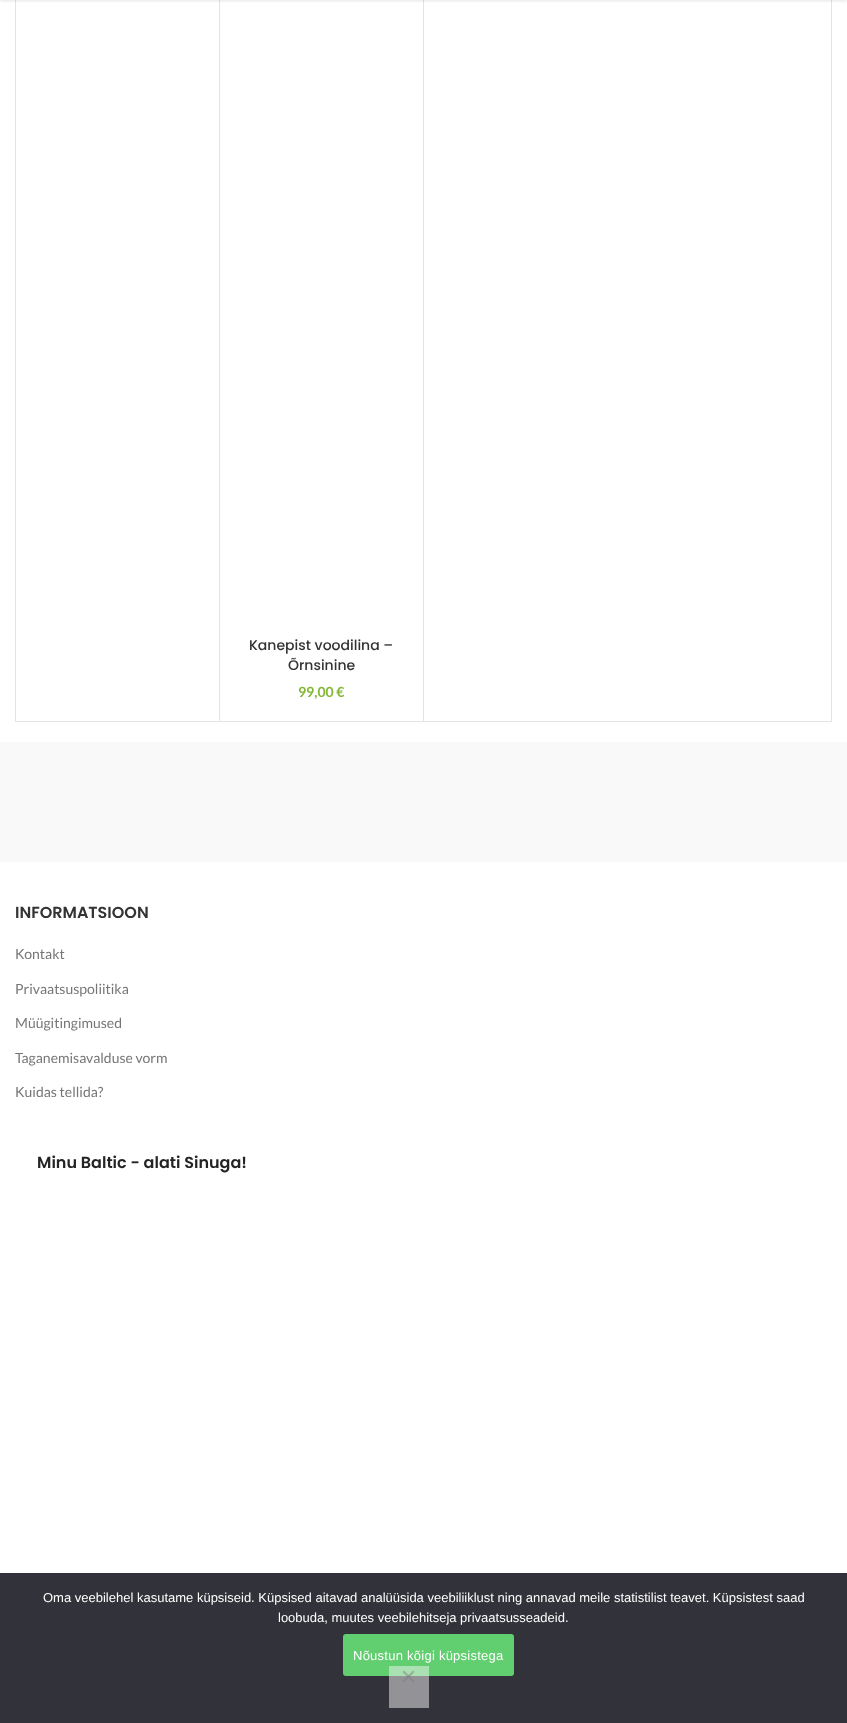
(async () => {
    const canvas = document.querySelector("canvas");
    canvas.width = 847;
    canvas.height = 1723;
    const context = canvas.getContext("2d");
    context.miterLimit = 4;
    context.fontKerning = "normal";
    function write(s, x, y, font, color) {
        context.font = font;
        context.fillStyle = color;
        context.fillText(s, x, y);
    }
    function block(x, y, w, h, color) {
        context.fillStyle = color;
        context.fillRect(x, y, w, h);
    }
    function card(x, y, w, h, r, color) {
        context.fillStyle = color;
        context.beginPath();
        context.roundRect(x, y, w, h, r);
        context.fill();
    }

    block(0, 0, 847, 1723, "rgb(255, 255, 255)");
    context.strokeStyle = "rgb(228, 228, 228)";
    context.strokeRect(15.5, -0.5, 816, 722);
    block(219, 0, 1, 721, "rgb(228, 228, 228)");
    block(423, 0, 1, 721, "rgb(228, 228, 228)");
    context.fillStyle = "rgba(0, 0, 0, 0.1)";
    context.filter = "blur(1.5px)";
    context.beginPath();
    context.rect(0, -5, 847, 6);
    context.fill();
    context.filter = "none";
    write("Kanepist voodilina –", 249, 650, "500 14px Poppins", "rgb(51, 51, 51)");
    write("Õrnsinine", 288, 670, "500 14px Poppins", "rgb(51, 51, 51)");
    write("99,00 €", 298, 697, "bold 14px Lato", "rgb(131, 183, 53)");
    block(0, 742, 847, 120, "rgb(249, 249, 249)");
    write("INFORMATSIOON", 15, 918, "600 16px Poppins", "rgb(51, 51, 51)");
    write("Kontakt", 15, 959, "14px Lato", "rgb(118, 118, 118)");
    write("Privaatsuspoliitika", 15, 994, "14px Lato", "rgb(118, 118, 118)");
    write("Müügitingimused", 15, 1028, "14px Lato", "rgb(118, 118, 118)");
    write("Taganemisavalduse vorm", 15, 1063, "14px Lato", "rgb(118, 118, 118)");
    write("Kuidas tellida?", 15, 1097, "14px Lato", "rgb(118, 118, 118)");
    write("Minu Baltic - alati Sinuga!", 37, 1168, "600 16px Poppins", "rgb(36, 36, 36)");
    block(0, 1573, 847, 150, "rgb(50, 50, 58)");
    write("Oma veebilehel kasutame küpsiseid. Küpsised aitavad analüüsida veebiliiklust ning annavad meile statistilist teavet. Küpsistest saad", 43, 1602, "13px Liberation Sans", "rgb(255, 255, 255)");
    write("loobuda, muutes veebilehitseja privaatsusseadeid.", 278, 1622, "13px Liberation Sans", "rgb(255, 255, 255)");
    card(343, 1634, 171, 42, 3, "rgb(97, 206, 112)");
    context.letterSpacing = "0.25px";
    write("Nõustun kõigi küpsistega", 353, 1660, "13px Liberation Sans", "rgb(255, 255, 255)");
    block(389, 1666, 40, 42, "rgba(243, 243, 243, 0.5)");
    context.fillStyle = "rgba(128, 128, 128, 0.5)";
    context.beginPath();
    context.moveTo(413, 1670.5);
    context.lineTo(414.5, 1672);
    context.lineTo(404, 1682.5);
    context.lineTo(402.5, 1681);
    context.closePath();
    context.fill();
    context.beginPath();
    context.moveTo(402.5, 1672);
    context.lineTo(404, 1670.5);
    context.lineTo(414.5, 1681);
    context.lineTo(413, 1682.5);
    context.closePath();
    context.fill();
})();
